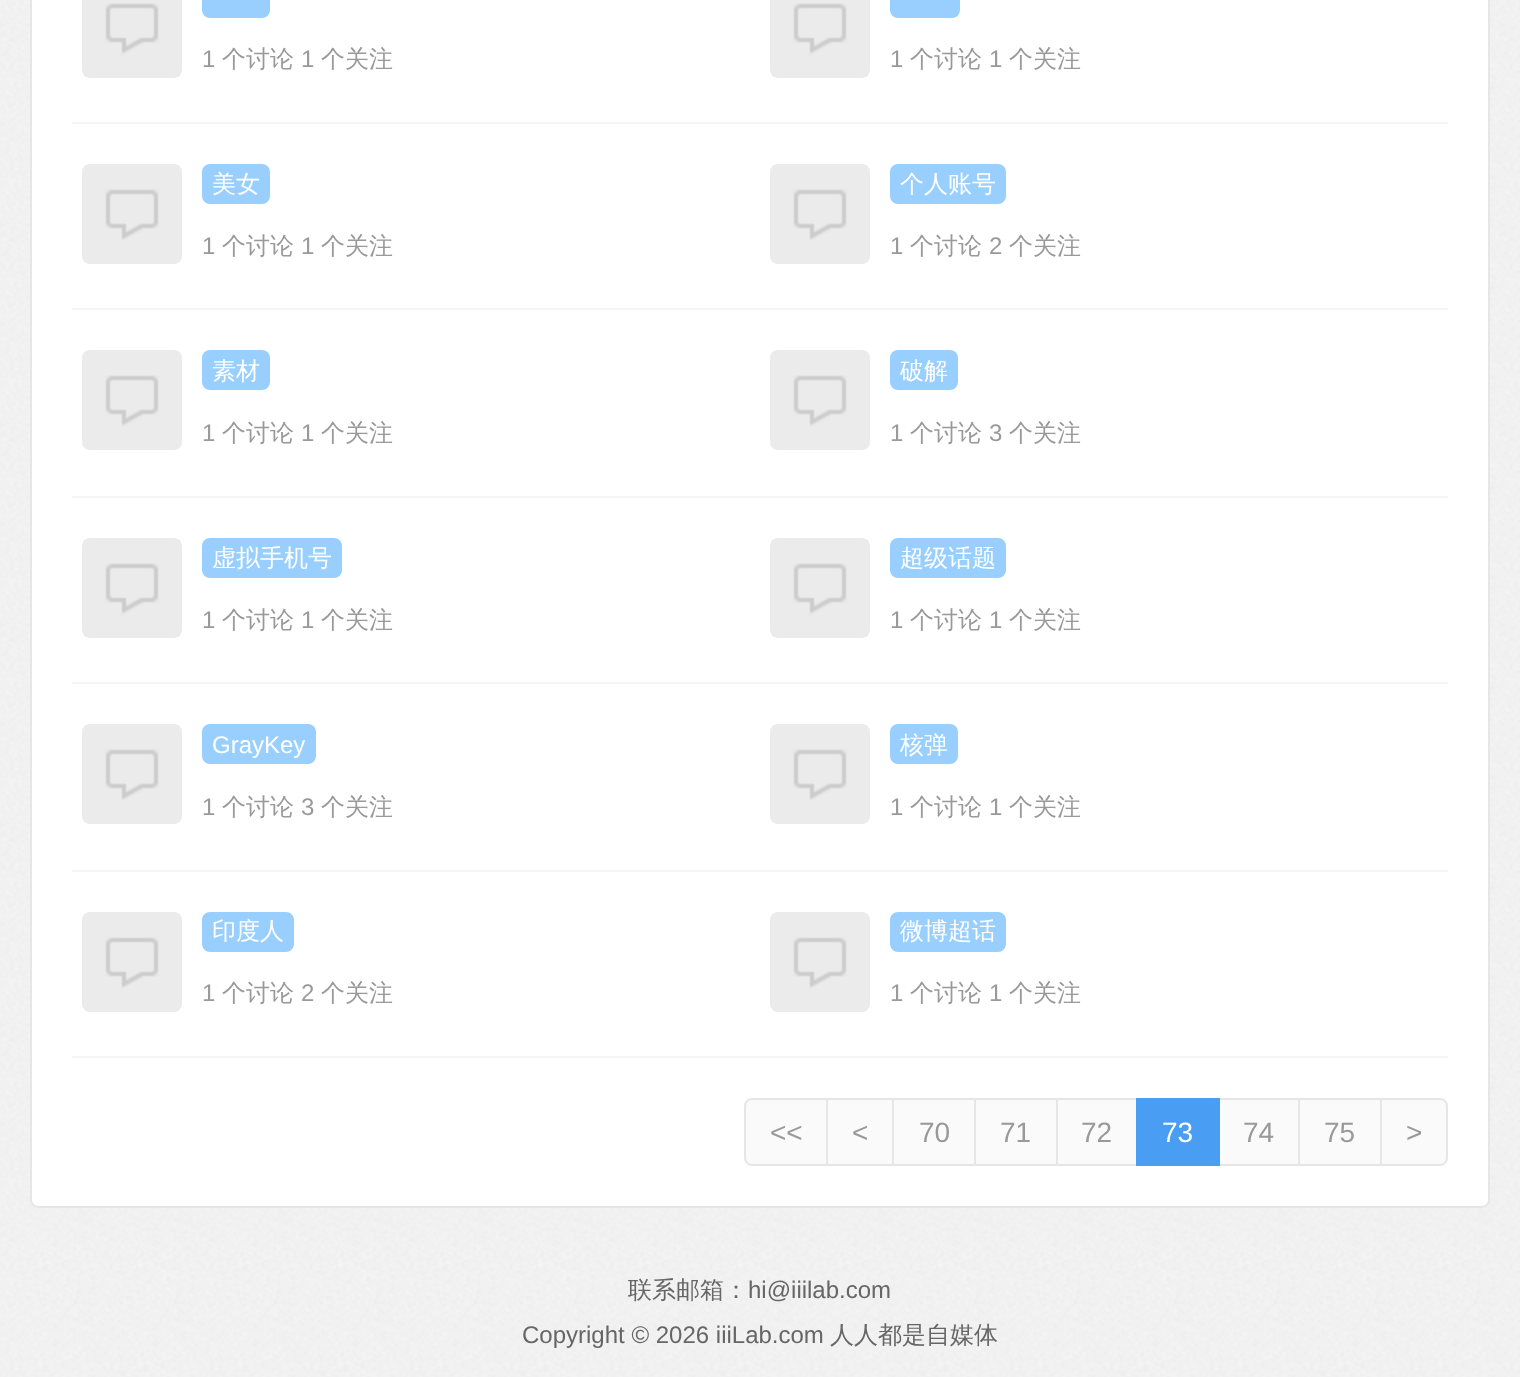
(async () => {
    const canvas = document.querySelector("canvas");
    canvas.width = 1520;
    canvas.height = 1377;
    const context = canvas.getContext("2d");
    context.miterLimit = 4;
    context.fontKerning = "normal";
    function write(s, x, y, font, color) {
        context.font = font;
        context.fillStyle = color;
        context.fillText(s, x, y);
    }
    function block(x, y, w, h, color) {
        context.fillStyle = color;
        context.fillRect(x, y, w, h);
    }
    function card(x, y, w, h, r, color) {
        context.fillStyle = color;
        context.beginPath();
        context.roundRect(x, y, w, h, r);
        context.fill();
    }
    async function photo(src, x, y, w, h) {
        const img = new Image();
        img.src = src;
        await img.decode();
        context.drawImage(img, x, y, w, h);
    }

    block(0, 0, 1520, 1377, "rgb(255, 255, 255)");
    await photo("media/1.png", 0, 0, 1520, 1377);
    context.beginPath();
    context.roundRect(31, -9, 1458, 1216, 7);
    context.fill();
    context.strokeStyle = "rgb(230, 230, 230)";
    context.lineWidth = 2;
    context.stroke();
    block(72, 122, 1376, 2, "rgb(245, 245, 245)");
    await photo("media/2.png", 82, 0, 100, 78);
    card(202, -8, 68, 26, 8, "rgb(153, 207, 255)");
    write("1", 202, 67, "24px Liberation Sans", "rgb(153, 153, 153)");
    write("个讨论", 222, 67, "500 24px WenQuanYi Zen Hei", "rgb(153, 153, 153)");
    write("1", 301, 67, "24px Liberation Sans", "rgb(153, 153, 153)");
    write("个关注", 321, 67, "500 24px WenQuanYi Zen Hei", "rgb(153, 153, 153)");
    await photo("media/2.png", 770, 0, 100, 78);
    card(890, -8, 70, 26, 8, "rgb(153, 207, 255)");
    write("1", 890, 67, "24px Liberation Sans", "rgb(153, 153, 153)");
    write("个讨论", 910, 67, "500 24px WenQuanYi Zen Hei", "rgb(153, 153, 153)");
    write("1", 989, 67, "24px Liberation Sans", "rgb(153, 153, 153)");
    write("个关注", 1009, 67, "500 24px WenQuanYi Zen Hei", "rgb(153, 153, 153)");
    block(72, 308, 1376, 2, "rgb(245, 245, 245)");
    await photo("media/3.png", 82, 164, 100, 100);
    card(202, 164, 68, 40, 8, "rgb(153, 207, 255)");
    write("美女", 212, 192, "500 24px WenQuanYi Zen Hei", "rgb(255, 255, 255)");
    write("1", 202, 254, "24px Liberation Sans", "rgb(153, 153, 153)");
    write("个讨论", 222, 254, "500 24px WenQuanYi Zen Hei", "rgb(153, 153, 153)");
    write("1", 301, 254, "24px Liberation Sans", "rgb(153, 153, 153)");
    write("个关注", 321, 254, "500 24px WenQuanYi Zen Hei", "rgb(153, 153, 153)");
    await photo("media/3.png", 770, 164, 100, 100);
    card(890, 164, 116, 40, 8, "rgb(153, 207, 255)");
    write("个人账号", 900, 192, "500 24px WenQuanYi Zen Hei", "rgb(255, 255, 255)");
    write("1", 890, 254, "24px Liberation Sans", "rgb(153, 153, 153)");
    write("个讨论", 910, 254, "500 24px WenQuanYi Zen Hei", "rgb(153, 153, 153)");
    write("2", 989, 254, "24px Liberation Sans", "rgb(153, 153, 153)");
    write("个关注", 1009, 254, "500 24px WenQuanYi Zen Hei", "rgb(153, 153, 153)");
    block(72, 496, 1376, 2, "rgb(245, 245, 245)");
    await photo("media/3.png", 82, 350, 100, 100);
    card(202, 350, 68, 40, 8, "rgb(153, 207, 255)");
    write("素材", 212, 379, "500 24px WenQuanYi Zen Hei", "rgb(255, 255, 255)");
    write("1", 202, 441, "24px Liberation Sans", "rgb(153, 153, 153)");
    write("个讨论", 222, 441, "500 24px WenQuanYi Zen Hei", "rgb(153, 153, 153)");
    write("1", 301, 441, "24px Liberation Sans", "rgb(153, 153, 153)");
    write("个关注", 321, 441, "500 24px WenQuanYi Zen Hei", "rgb(153, 153, 153)");
    await photo("media/3.png", 770, 350, 100, 100);
    card(890, 350, 68, 40, 8, "rgb(153, 207, 255)");
    write("破解", 900, 379, "500 24px WenQuanYi Zen Hei", "rgb(255, 255, 255)");
    write("1", 890, 441, "24px Liberation Sans", "rgb(153, 153, 153)");
    write("个讨论", 910, 441, "500 24px WenQuanYi Zen Hei", "rgb(153, 153, 153)");
    write("3", 989, 441, "24px Liberation Sans", "rgb(153, 153, 153)");
    write("个关注", 1009, 441, "500 24px WenQuanYi Zen Hei", "rgb(153, 153, 153)");
    block(72, 682, 1376, 2, "rgb(245, 245, 245)");
    await photo("media/3.png", 82, 538, 100, 100);
    card(202, 538, 140, 40, 8, "rgb(153, 207, 255)");
    write("虚拟手机号", 212, 566, "500 24px WenQuanYi Zen Hei", "rgb(255, 255, 255)");
    write("1", 202, 628, "24px Liberation Sans", "rgb(153, 153, 153)");
    write("个讨论", 222, 628, "500 24px WenQuanYi Zen Hei", "rgb(153, 153, 153)");
    write("1", 301, 628, "24px Liberation Sans", "rgb(153, 153, 153)");
    write("个关注", 321, 628, "500 24px WenQuanYi Zen Hei", "rgb(153, 153, 153)");
    await photo("media/3.png", 770, 538, 100, 100);
    card(890, 538, 116, 40, 8, "rgb(153, 207, 255)");
    write("超级话题", 900, 566, "500 24px WenQuanYi Zen Hei", "rgb(255, 255, 255)");
    write("1", 890, 628, "24px Liberation Sans", "rgb(153, 153, 153)");
    write("个讨论", 910, 628, "500 24px WenQuanYi Zen Hei", "rgb(153, 153, 153)");
    write("1", 989, 628, "24px Liberation Sans", "rgb(153, 153, 153)");
    write("个关注", 1009, 628, "500 24px WenQuanYi Zen Hei", "rgb(153, 153, 153)");
    block(72, 870, 1376, 2, "rgb(245, 245, 245)");
    await photo("media/3.png", 82, 724, 100, 100);
    card(202, 724, 114, 40, 8, "rgb(153, 207, 255)");
    write("GrayKey", 212, 753, "24px Liberation Sans", "rgb(255, 255, 255)");
    write("1", 202, 815, "24px Liberation Sans", "rgb(153, 153, 153)");
    write("个讨论", 222, 815, "500 24px WenQuanYi Zen Hei", "rgb(153, 153, 153)");
    write("3", 301, 815, "24px Liberation Sans", "rgb(153, 153, 153)");
    write("个关注", 321, 815, "500 24px WenQuanYi Zen Hei", "rgb(153, 153, 153)");
    await photo("media/3.png", 770, 724, 100, 100);
    card(890, 724, 68, 40, 8, "rgb(153, 207, 255)");
    write("核弹", 900, 753, "500 24px WenQuanYi Zen Hei", "rgb(255, 255, 255)");
    write("1", 890, 815, "24px Liberation Sans", "rgb(153, 153, 153)");
    write("个讨论", 910, 815, "500 24px WenQuanYi Zen Hei", "rgb(153, 153, 153)");
    write("1", 989, 815, "24px Liberation Sans", "rgb(153, 153, 153)");
    write("个关注", 1009, 815, "500 24px WenQuanYi Zen Hei", "rgb(153, 153, 153)");
    block(72, 1056, 1376, 2, "rgb(245, 245, 245)");
    await photo("media/3.png", 82, 912, 100, 100);
    card(202, 912, 92, 40, 8, "rgb(153, 207, 255)");
    write("印度人", 212, 939, "500 24px WenQuanYi Zen Hei", "rgb(255, 255, 255)");
    write("1", 202, 1001, "24px Liberation Sans", "rgb(153, 153, 153)");
    write("个讨论", 222, 1001, "500 24px WenQuanYi Zen Hei", "rgb(153, 153, 153)");
    write("2", 301, 1001, "24px Liberation Sans", "rgb(153, 153, 153)");
    write("个关注", 321, 1001, "500 24px WenQuanYi Zen Hei", "rgb(153, 153, 153)");
    await photo("media/3.png", 770, 912, 100, 100);
    card(890, 912, 116, 40, 8, "rgb(153, 207, 255)");
    write("微博超话", 900, 939, "500 24px WenQuanYi Zen Hei", "rgb(255, 255, 255)");
    write("1", 890, 1001, "24px Liberation Sans", "rgb(153, 153, 153)");
    write("个讨论", 910, 1001, "500 24px WenQuanYi Zen Hei", "rgb(153, 153, 153)");
    write("1", 989, 1001, "24px Liberation Sans", "rgb(153, 153, 153)");
    write("个关注", 1009, 1001, "500 24px WenQuanYi Zen Hei", "rgb(153, 153, 153)");
    context.fillStyle = "rgb(250, 250, 250)";
    context.beginPath();
    context.roundRect(745, 1099, 82, 66, [7, 0, 0, 7]);
    context.fill();
    context.stroke();
    write("<<", 770, 1142, "28px Liberation Sans", "rgb(153, 153, 153)");
    context.fillStyle = "rgb(250, 250, 250)";
    context.beginPath();
    context.rect(827, 1099, 66, 66);
    context.fill();
    context.stroke();
    write("<", 852, 1142, "28px Liberation Sans", "rgb(153, 153, 153)");
    context.fillStyle = "rgb(250, 250, 250)";
    context.beginPath();
    context.rect(893, 1099, 82, 66);
    context.fill();
    context.stroke();
    write("70", 919, 1142, "28px Liberation Sans", "rgb(153, 153, 153)");
    context.fillStyle = "rgb(250, 250, 250)";
    context.beginPath();
    context.rect(975, 1099, 82, 66);
    context.fill();
    context.stroke();
    write("71", 1000, 1142, "28px Liberation Sans", "rgb(153, 153, 153)");
    context.fillStyle = "rgb(250, 250, 250)";
    context.beginPath();
    context.rect(1057, 1099, 80, 66);
    context.fill();
    context.stroke();
    write("72", 1081, 1142, "28px Liberation Sans", "rgb(153, 153, 153)");
    context.fillStyle = "rgb(250, 250, 250)";
    context.beginPath();
    context.rect(1219, 1099, 80, 66);
    context.fill();
    context.stroke();
    block(1136, 1098, 84, 68, "rgb(73, 158, 243)");
    write("73", 1162, 1142, "28px Liberation Sans", "rgb(255, 255, 255)");
    write("74", 1243, 1142, "28px Liberation Sans", "rgb(153, 153, 153)");
    context.fillStyle = "rgb(250, 250, 250)";
    context.beginPath();
    context.rect(1299, 1099, 82, 66);
    context.fill();
    context.stroke();
    write("75", 1324, 1142, "28px Liberation Sans", "rgb(153, 153, 153)");
    context.fillStyle = "rgb(250, 250, 250)";
    context.beginPath();
    context.roundRect(1381, 1099, 66, 66, [0, 7, 7, 0]);
    context.fill();
    context.stroke();
    write(">", 1406, 1142, "28px Liberation Sans", "rgb(153, 153, 153)");
    write("联系邮箱：", 628, 1298, "500 24px WenQuanYi Zen Hei", "rgb(102, 102, 102)");
    write("hi@iiilab.com", 748, 1298, "24px Liberation Sans", "rgb(102, 102, 102)");
    write("Copyright © 2026 iiiLab.com", 522, 1343, "24px Liberation Sans", "rgb(102, 102, 102)");
    write("人人都是自媒体", 830, 1343, "500 24px WenQuanYi Zen Hei", "rgb(102, 102, 102)");
})();
